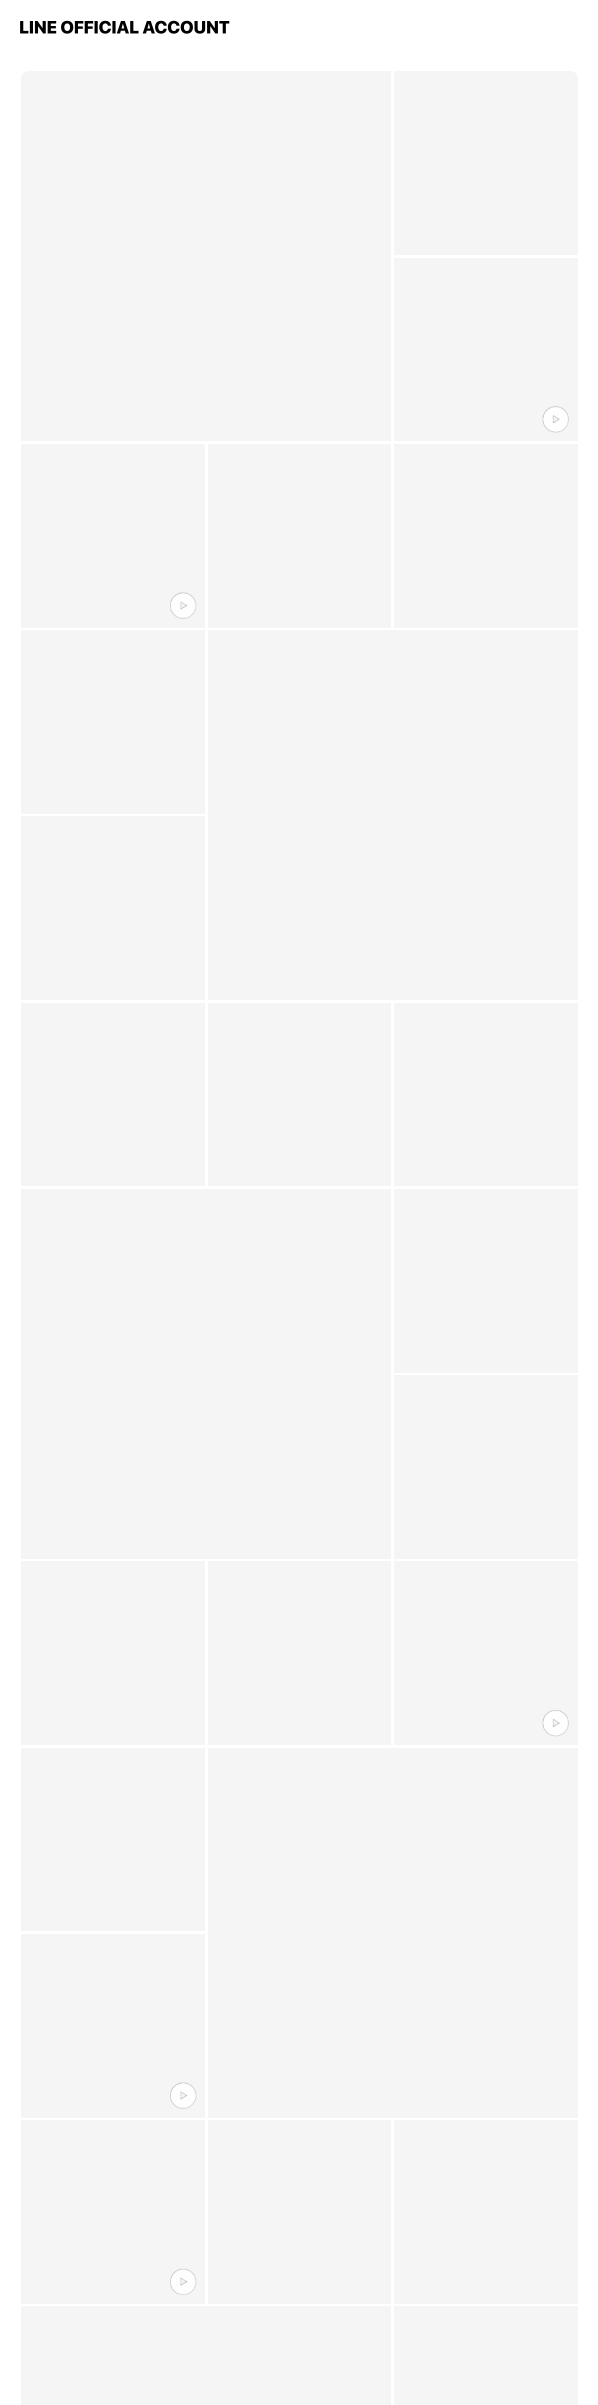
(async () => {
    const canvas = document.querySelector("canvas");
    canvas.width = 598;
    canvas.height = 2405;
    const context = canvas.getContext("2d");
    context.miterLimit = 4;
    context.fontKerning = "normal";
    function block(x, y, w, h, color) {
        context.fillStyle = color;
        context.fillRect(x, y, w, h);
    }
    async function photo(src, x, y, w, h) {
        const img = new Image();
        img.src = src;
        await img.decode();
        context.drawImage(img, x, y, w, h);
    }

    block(0, 0, 598, 2405, "rgb(255, 255, 255)");
    await photo("media/1.png", 20, 20, 210, 14);
    context.fillStyle = "rgb(245, 245, 245)";
    context.beginPath();
    context.roundRect(21, 71, 370, 370, [8, 0, 0, 0]);
    context.fill();
    context.beginPath();
    context.roundRect(394, 71, 184, 184, [0, 8, 0, 0]);
    context.fill();
    block(394, 258, 184, 183, "rgb(245, 245, 245)");
    await photo("media/2.png", 542, 406, 27, 27);
    block(21, 444, 184, 184, "rgb(245, 245, 245)");
    await photo("media/3.png", 170, 592, 27, 27);
    block(208, 444, 183, 184, "rgb(245, 245, 245)");
    block(394, 444, 184, 184, "rgb(245, 245, 245)");
    block(21, 630, 184, 184, "rgb(245, 245, 245)");
    block(208, 630, 370, 370, "rgb(245, 245, 245)");
    block(21, 816, 184, 184, "rgb(245, 245, 245)");
    block(21, 1003, 184, 183, "rgb(245, 245, 245)");
    block(208, 1003, 183, 183, "rgb(245, 245, 245)");
    block(394, 1003, 184, 183, "rgb(245, 245, 245)");
    block(21, 1189, 370, 370, "rgb(245, 245, 245)");
    block(394, 1189, 184, 184, "rgb(245, 245, 245)");
    block(394, 1375, 184, 184, "rgb(245, 245, 245)");
    block(21, 1561, 184, 184, "rgb(245, 245, 245)");
    block(208, 1561, 183, 184, "rgb(245, 245, 245)");
    block(394, 1561, 184, 184, "rgb(245, 245, 245)");
    await photo("media/4.png", 542, 1710, 27, 27);
    block(21, 1748, 184, 183, "rgb(245, 245, 245)");
    block(208, 1748, 370, 370, "rgb(245, 245, 245)");
    block(21, 1934, 184, 184, "rgb(245, 245, 245)");
    await photo("media/3.png", 170, 2082, 27, 27);
    block(21, 2120, 184, 184, "rgb(245, 245, 245)");
    await photo("media/5.png", 170, 2268, 27, 27);
    block(208, 2120, 183, 184, "rgb(245, 245, 245)");
    block(394, 2120, 184, 184, "rgb(245, 245, 245)");
    block(21, 2306, 370, 99, "rgb(245, 245, 245)");
    block(394, 2306, 184, 99, "rgb(245, 245, 245)");
})();
